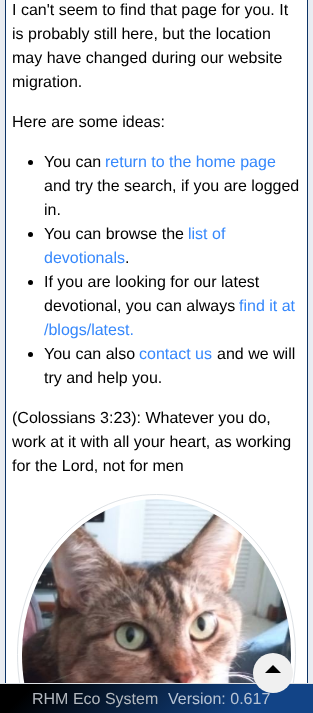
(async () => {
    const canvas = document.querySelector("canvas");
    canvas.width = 313;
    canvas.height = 713;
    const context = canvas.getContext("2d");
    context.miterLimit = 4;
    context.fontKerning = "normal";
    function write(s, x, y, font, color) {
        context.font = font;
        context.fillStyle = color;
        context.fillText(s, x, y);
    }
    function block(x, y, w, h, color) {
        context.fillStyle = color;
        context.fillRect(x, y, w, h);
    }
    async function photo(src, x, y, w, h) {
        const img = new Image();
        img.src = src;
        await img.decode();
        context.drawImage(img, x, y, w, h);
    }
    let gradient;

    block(0, 0, 313, 713, "rgb(238, 242, 247)");
    context.fillStyle = "rgba(154, 161, 171, 0.15)";
    context.filter = "blur(17.5px)";
    context.beginPath();
    context.roundRect(5, -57, 303, 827, 4);
    context.fill();
    context.filter = "none";
    block(6, 0, 301, 683, "rgb(255, 255, 255)");
    context.strokeStyle = "rgb(13, 51, 102)";
    context.strokeRect(5.5, -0.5, 302, 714);
    write("I can't seem to find that page for you. It", 12, 15, "16px Liberation Sans", "rgb(0, 0, 0)");
    write("is probably still here, but the location", 12, 39, "16px Liberation Sans", "rgb(0, 0, 0)");
    write("may have changed during our website", 12, 63, "16px Liberation Sans", "rgb(0, 0, 0)");
    write("migration.", 12, 87, "16px Liberation Sans", "rgb(0, 0, 0)");
    write("Here are some ideas:", 12, 127, "16px Liberation Sans", "rgb(0, 0, 0)");
    context.beginPath();
    context.arc(30.5, 162.5, 2.5, 0, Math.PI * 2);
    context.fill();
    write("You can", 44, 167, "16px Liberation Sans", "rgb(0, 0, 0)");
    write("return to the home page", 105, 167, "16px Liberation Sans", "rgb(54, 136, 252)");
    write("and try the search, if you are logged", 44, 191, "16px Liberation Sans", "rgb(0, 0, 0)");
    write("in.", 44, 215, "16px Liberation Sans", "rgb(0, 0, 0)");
    context.beginPath();
    context.arc(30.5, 234.5, 2.5, 0, Math.PI * 2);
    context.fill();
    write("You can browse the", 44, 239, "16px Liberation Sans", "rgb(0, 0, 0)");
    write("list of", 188, 239, "16px Liberation Sans", "rgb(54, 136, 252)");
    write("devotionals", 44, 263, "16px Liberation Sans", "rgb(54, 136, 252)");
    write(".", 125, 263, "16px Liberation Sans", "rgb(0, 0, 0)");
    context.beginPath();
    context.arc(30.5, 282.5, 2.5, 0, Math.PI * 2);
    context.fill();
    write("If you are looking for our latest", 44, 287, "16px Liberation Sans", "rgb(0, 0, 0)");
    write("devotional, you can always", 44, 311, "16px Liberation Sans", "rgb(0, 0, 0)");
    write("find it at", 239, 311, "16px Liberation Sans", "rgb(54, 136, 252)");
    write("/blogs/latest.", 44, 335, "16px Liberation Sans", "rgb(54, 136, 252)");
    context.fillStyle = "rgb(0, 0, 0)";
    context.beginPath();
    context.arc(30.5, 354.5, 2.5, 0, Math.PI * 2);
    context.fill();
    write("You can also", 44, 359, "16px Liberation Sans", "rgb(0, 0, 0)");
    write("contact us", 139, 359, "16px Liberation Sans", "rgb(54, 136, 252)");
    write("and we will", 217, 359, "16px Liberation Sans", "rgb(0, 0, 0)");
    write("try and help you.", 44, 383, "16px Liberation Sans", "rgb(0, 0, 0)");
    write("(Colossians 3:23): Whatever you do,", 12, 423, "16px Liberation Sans", "rgb(0, 0, 0)");
    write("work at it with all your heart, as working", 12, 447, "16px Liberation Sans", "rgb(0, 0, 0)");
    write("for the Lord, not for men", 12, 471, "16px Liberation Sans", "rgb(0, 0, 0)");
    context.beginPath();
    context.moveTo(156.5, 494.5);
    context.bezierCurveTo(233.5, 494.5, 295.5, 566, 295.5, 654.5);
    context.bezierCurveTo(295.5, 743, 233.5, 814.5, 156.5, 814.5);
    context.bezierCurveTo(79.5, 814.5, 17.5, 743, 17.5, 654.5);
    context.bezierCurveTo(17.5, 566, 79.5, 494.5, 156.5, 494.5);
    context.closePath();
    context.strokeStyle = "rgb(222, 226, 230)";
    context.stroke();
    await photo("media/1.png", 22, 499, 269, 184);
    gradient = context.createLinearGradient(71, 613, 242, 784);
    gradient.addColorStop(0.1, "rgb(0, 0, 0)");
    gradient.addColorStop(0.8, "rgb(18, 68, 135)");
    context.fillStyle = gradient;
    context.fillRect(0, 684, 313, 29);
    block(0, 683, 313, 1, "rgb(222, 226, 230)");
    write("Version: 0.617", 168, 704, "16px Liberation Sans", "rgb(183, 195, 212)");
    context.fillStyle = "rgb(240, 240, 240)";
    context.beginPath();
    context.arc(273, 673, 20, 0, Math.PI * 2);
    context.fill();
    context.fillStyle = "rgb(0, 0, 0)";
    context.beginPath();
    context.moveTo(265, 673);
    context.lineTo(273, 665);
    context.lineTo(281, 673);
    context.closePath();
    context.fill();
    write("RHM Eco System", 32, 704, "16px Liberation Sans", "rgb(180, 185, 191)");
})();
